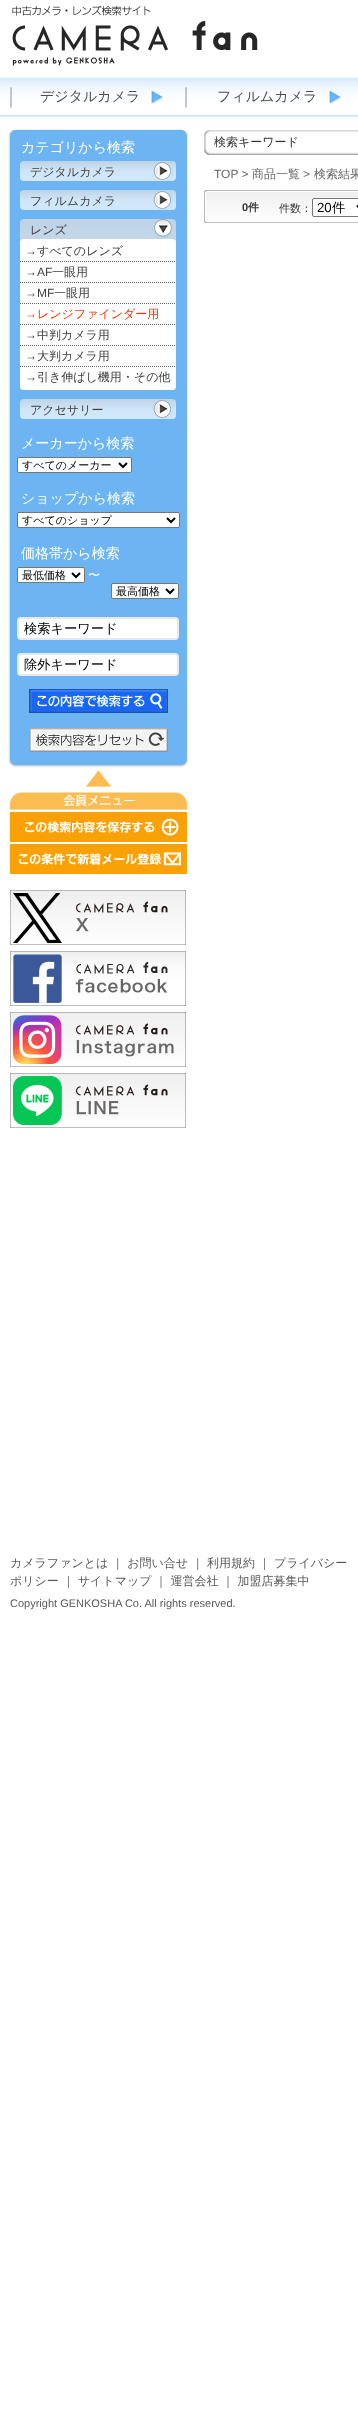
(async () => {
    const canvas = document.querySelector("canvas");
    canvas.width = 358;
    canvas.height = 2419;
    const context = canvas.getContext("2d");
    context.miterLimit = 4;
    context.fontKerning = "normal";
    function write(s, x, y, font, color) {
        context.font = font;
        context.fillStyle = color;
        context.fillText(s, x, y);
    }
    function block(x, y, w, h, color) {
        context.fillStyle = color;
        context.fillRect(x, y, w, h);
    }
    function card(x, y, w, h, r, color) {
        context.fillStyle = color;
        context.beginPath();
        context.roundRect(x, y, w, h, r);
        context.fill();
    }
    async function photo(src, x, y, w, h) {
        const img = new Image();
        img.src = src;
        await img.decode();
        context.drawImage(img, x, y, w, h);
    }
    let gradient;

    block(0, 0, 358, 2419, "rgb(255, 255, 255)");
    await photo("media/1.png", 12, 5, 246, 61);
    await photo("media/2.png", 0, 77, 358, 41);
    await photo("media/3.png", 10, 86, 2, 22);
    await photo("media/3.png", 185, 86, 2, 22);
    await photo("media/4.png", 150, 90, 14, 14);
    write("デジタルカメラ", 40, 101, "500 14px WenQuanYi Zen Hei", "rgb(77, 77, 77)");
    await photo("media/4.png", 328, 90, 14, 14);
    write("フィルムカメラ", 217, 101, "500 14px WenQuanYi Zen Hei", "rgb(77, 77, 77)");
    await photo("media/5.png", 8, 136, 180, 623);
    await photo("media/6.png", 8, 128, 180, 8);
    write("カテゴリから検索", 21, 152, "500 14px WenQuanYi Zen Hei", "rgb(255, 255, 255)");
    gradient = context.createLinearGradient(98, 161, 98, 181);
    gradient.addColorStop(0, "rgb(190, 212, 230)");
    gradient.addColorStop(0.5, "rgb(208, 230, 248)");
    gradient.addColorStop(1, "rgb(209, 231, 251)");
    context.fillStyle = gradient;
    context.beginPath();
    context.roundRect(20, 161, 156, 20, 4);
    context.fill();
    write("デジタルカメラ", 30, 176, "500 12px WenQuanYi Zen Hei", "rgb(64, 64, 64)");
    await photo("media/7.png", 153, 161, 20, 20);
    gradient = context.createLinearGradient(98, 190, 98, 210);
    gradient.addColorStop(0, "rgb(190, 212, 230)");
    gradient.addColorStop(0.5, "rgb(208, 230, 248)");
    gradient.addColorStop(1, "rgb(209, 231, 251)");
    context.fillStyle = gradient;
    context.beginPath();
    context.roundRect(20, 190, 156, 20, 4);
    context.fill();
    write("フィルムカメラ", 30, 205, "500 12px WenQuanYi Zen Hei", "rgb(64, 64, 64)");
    await photo("media/7.png", 153, 190, 20, 20);
    gradient = context.createLinearGradient(98, 219, 98, 390);
    gradient.addColorStop(0, "rgb(190, 212, 230)");
    gradient.addColorStop(0.5, "rgb(208, 230, 248)");
    gradient.addColorStop(1, "rgb(209, 231, 251)");
    context.fillStyle = gradient;
    context.beginPath();
    context.roundRect(20, 219, 156, 171, 4);
    context.fill();
    write("レンズ", 30, 234, "500 12px WenQuanYi Zen Hei", "rgb(64, 64, 64)");
    await photo("media/8.png", 152, 219, 21, 20);
    card(20, 239, 156, 151, 4, "rgb(255, 255, 255)");
    context.beginPath();
    context.moveTo(20, 261.5);
    context.lineTo(176, 261.5);
    context.strokeStyle = "rgb(102, 102, 102)";
    context.setLineDash([1, 1]);
    context.stroke();
    write("→", 25, 255, "12px Liberation Sans", "rgb(64, 64, 64)");
    write("すべてのレンズ", 37, 255, "500 12px WenQuanYi Zen Hei", "rgb(64, 64, 64)");
    context.beginPath();
    context.moveTo(20, 282.5);
    context.lineTo(176, 282.5);
    context.stroke();
    write("→AF", 25, 276, "12px Liberation Sans", "rgb(64, 64, 64)");
    write("一眼用", 52, 276, "500 12px WenQuanYi Zen Hei", "rgb(64, 64, 64)");
    context.beginPath();
    context.moveTo(20, 303.5);
    context.lineTo(176, 303.5);
    context.stroke();
    write("→MF", 25, 297, "12px Liberation Sans", "rgb(64, 64, 64)");
    write("一眼用", 54, 297, "500 12px WenQuanYi Zen Hei", "rgb(64, 64, 64)");
    context.beginPath();
    context.moveTo(20, 324.5);
    context.lineTo(176, 324.5);
    context.stroke();
    write("→", 25, 318, "12px Liberation Sans", "rgb(255, 51, 0)");
    write("レンジファインダー用", 37, 318, "500 12px WenQuanYi Zen Hei", "rgb(255, 51, 0)");
    context.beginPath();
    context.moveTo(20, 345.5);
    context.lineTo(176, 345.5);
    context.stroke();
    write("→", 25, 339, "12px Liberation Sans", "rgb(64, 64, 64)");
    write("中判カメラ用", 37, 339, "500 12px WenQuanYi Zen Hei", "rgb(64, 64, 64)");
    context.beginPath();
    context.moveTo(20, 366.5);
    context.lineTo(176, 366.5);
    context.stroke();
    write("→", 25, 360, "12px Liberation Sans", "rgb(64, 64, 64)");
    write("大判カメラ用", 37, 360, "500 12px WenQuanYi Zen Hei", "rgb(64, 64, 64)");
    write("→", 25, 381, "12px Liberation Sans", "rgb(64, 64, 64)");
    write("引き伸ばし機用・その他", 37, 381, "500 12px WenQuanYi Zen Hei", "rgb(64, 64, 64)");
    gradient = context.createLinearGradient(98, 399, 98, 419);
    gradient.addColorStop(0, "rgb(190, 212, 230)");
    gradient.addColorStop(0.5, "rgb(208, 230, 248)");
    gradient.addColorStop(1, "rgb(209, 231, 251)");
    context.fillStyle = gradient;
    context.beginPath();
    context.roundRect(20, 399, 156, 20, 4);
    context.fill();
    write("アクセサリー", 30, 414, "500 12px WenQuanYi Zen Hei", "rgb(64, 64, 64)");
    await photo("media/7.png", 153, 399, 20, 20);
    write("メーカーから検索", 21, 448, "500 14px WenQuanYi Zen Hei", "rgb(255, 255, 255)");
    context.beginPath();
    context.roundRect(17.5, 457.5, 114, 15, 1.5);
    context.fill();
    context.strokeStyle = "rgb(118, 118, 118)";
    context.setLineDash([]);
    context.stroke();
    context.beginPath();
    context.moveTo(119, 463);
    context.lineTo(123, 467);
    context.lineTo(127, 463);
    context.strokeStyle = "rgb(0, 0, 0)";
    context.lineWidth = 2;
    context.stroke();
    write("すべてのメーカー", 22, 469, "500 11px WenQuanYi Zen Hei", "rgb(0, 0, 0)");
    write("ショップから検索", 21, 503, "500 14px WenQuanYi Zen Hei", "rgb(255, 255, 255)");
    context.beginPath();
    context.roundRect(17.5, 512.5, 162, 15, 1.5);
    context.fill();
    context.strokeStyle = "rgb(118, 118, 118)";
    context.lineWidth = 1;
    context.stroke();
    context.beginPath();
    context.moveTo(167, 518);
    context.lineTo(171, 522);
    context.lineTo(175, 518);
    context.strokeStyle = "rgb(0, 0, 0)";
    context.lineWidth = 2;
    context.stroke();
    write("すべてのショップ", 22, 524, "500 11px WenQuanYi Zen Hei", "rgb(0, 0, 0)");
    write("価格帯から検索", 21, 558, "500 14px WenQuanYi Zen Hei", "rgb(255, 255, 255)");
    context.beginPath();
    context.roundRect(17.5, 567.5, 67, 15, 1.5);
    context.fill();
    context.strokeStyle = "rgb(118, 118, 118)";
    context.lineWidth = 1;
    context.stroke();
    context.beginPath();
    context.moveTo(72, 573);
    context.lineTo(76, 577);
    context.lineTo(80, 573);
    context.strokeStyle = "rgb(0, 0, 0)";
    context.lineWidth = 2;
    context.stroke();
    write("最低価格", 22, 579, "500 11px WenQuanYi Zen Hei", "rgb(0, 0, 0)");
    write("〜", 88, 579, "500 12px WenQuanYi Zen Hei", "rgb(255, 255, 255)");
    context.beginPath();
    context.roundRect(111.5, 583.5, 67, 15, 1.5);
    context.fill();
    context.strokeStyle = "rgb(118, 118, 118)";
    context.lineWidth = 1;
    context.stroke();
    context.beginPath();
    context.moveTo(166, 589);
    context.lineTo(170, 593);
    context.lineTo(174, 589);
    context.strokeStyle = "rgb(0, 0, 0)";
    context.lineWidth = 2;
    context.stroke();
    write("最高価格", 116, 595, "500 11px WenQuanYi Zen Hei", "rgb(0, 0, 0)");
    context.fillStyle = "rgb(255, 255, 255)";
    context.beginPath();
    context.roundRect(18, 618, 160, 21, 3);
    context.fill();
    context.strokeStyle = "rgb(232, 232, 232)";
    context.stroke();
    write("検索キーワード", 24, 633, "500 13.25px WenQuanYi Zen Hei", "rgb(0, 0, 0)");
    context.fillStyle = "rgb(255, 255, 255)";
    context.beginPath();
    context.roundRect(18, 654, 160, 21, 3);
    context.fill();
    context.stroke();
    write("除外キーワード", 24, 669, "500 13.25px WenQuanYi Zen Hei", "rgb(0, 0, 0)");
    await photo("media/9.png", 29, 689, 139, 24);
    await photo("media/10.png", 29, 728, 139, 24);
    await photo("media/11.png", 8, 759, 180, 10);
    await photo("media/12.png", 10, 770, 177, 40);
    await photo("media/13.png", 10, 812, 177, 30);
    await photo("media/14.png", 10, 844, 177, 30);
    await photo("media/15.png", 10, 890, 176, 55);
    await photo("media/16.png", 10, 951, 176, 55);
    await photo("media/17.png", 10, 1012, 176, 55);
    await photo("media/18.png", 10, 1073, 176, 55);
    await photo("media/19.png", 204, 130, 154, 25);
    write("検索キーワード", 214, 146, "500 12px WenQuanYi Zen Hei", "rgb(51, 51, 51)");
    write("TOP >", 214, 178, "12px Liberation Sans", "rgb(102, 102, 102)");
    write("商品一覧", 252, 178, "500 12px WenQuanYi Zen Hei", "rgb(102, 102, 102)");
    write(">", 303, 178, "12px Liberation Sans", "rgb(102, 102, 102)");
    write("検索結果", 314, 178, "500 12px WenQuanYi Zen Hei", "rgb(102, 102, 102)");
    await photo("media/20.png", 207, 190, 151, 33);
    await photo("media/21.png", 204, 190, 3, 33);
    write("0", 242, 211, "bold 11px Liberation Sans", "rgb(51, 51, 51)");
    write("件", 248, 211, "bold 11px WenQuanYi Zen Hei", "rgb(51, 51, 51)");
    write("件数：", 279, 212, "500 11px WenQuanYi Zen Hei", "rgb(51, 51, 51)");
    context.fillStyle = "rgb(255, 255, 255)";
    context.beginPath();
    context.roundRect(312.5, 198.5, 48, 18, 1.5);
    context.fill();
    context.strokeStyle = "rgb(118, 118, 118)";
    context.lineWidth = 1;
    context.stroke();
    context.beginPath();
    context.moveTo(357, 205.5);
    context.lineTo(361, 209.5);
    context.lineTo(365, 205.5);
    context.strokeStyle = "rgb(0, 0, 0)";
    context.lineWidth = 2;
    context.stroke();
    write("20", 317, 212, "13.25px Liberation Sans", "rgb(0, 0, 0)");
    write("件", 332, 212, "500 13.25px WenQuanYi Zen Hei", "rgb(0, 0, 0)");
    write("カメラファンとは ｜ お問い合せ ｜ 利用規約 ｜ プライバシー", 10, 1567, "500 12px WenQuanYi Zen Hei", "rgb(89, 89, 89)");
    write("ポリシー ｜ サイトマップ ｜ 運営会社 ｜ 加盟店募集中", 10, 1585, "500 12px WenQuanYi Zen Hei", "rgb(89, 89, 89)");
    write("Copyright GENKOSHA Co. All rights reserved.", 10, 1607, "11px Liberation Sans", "rgb(89, 89, 89)");
})();
